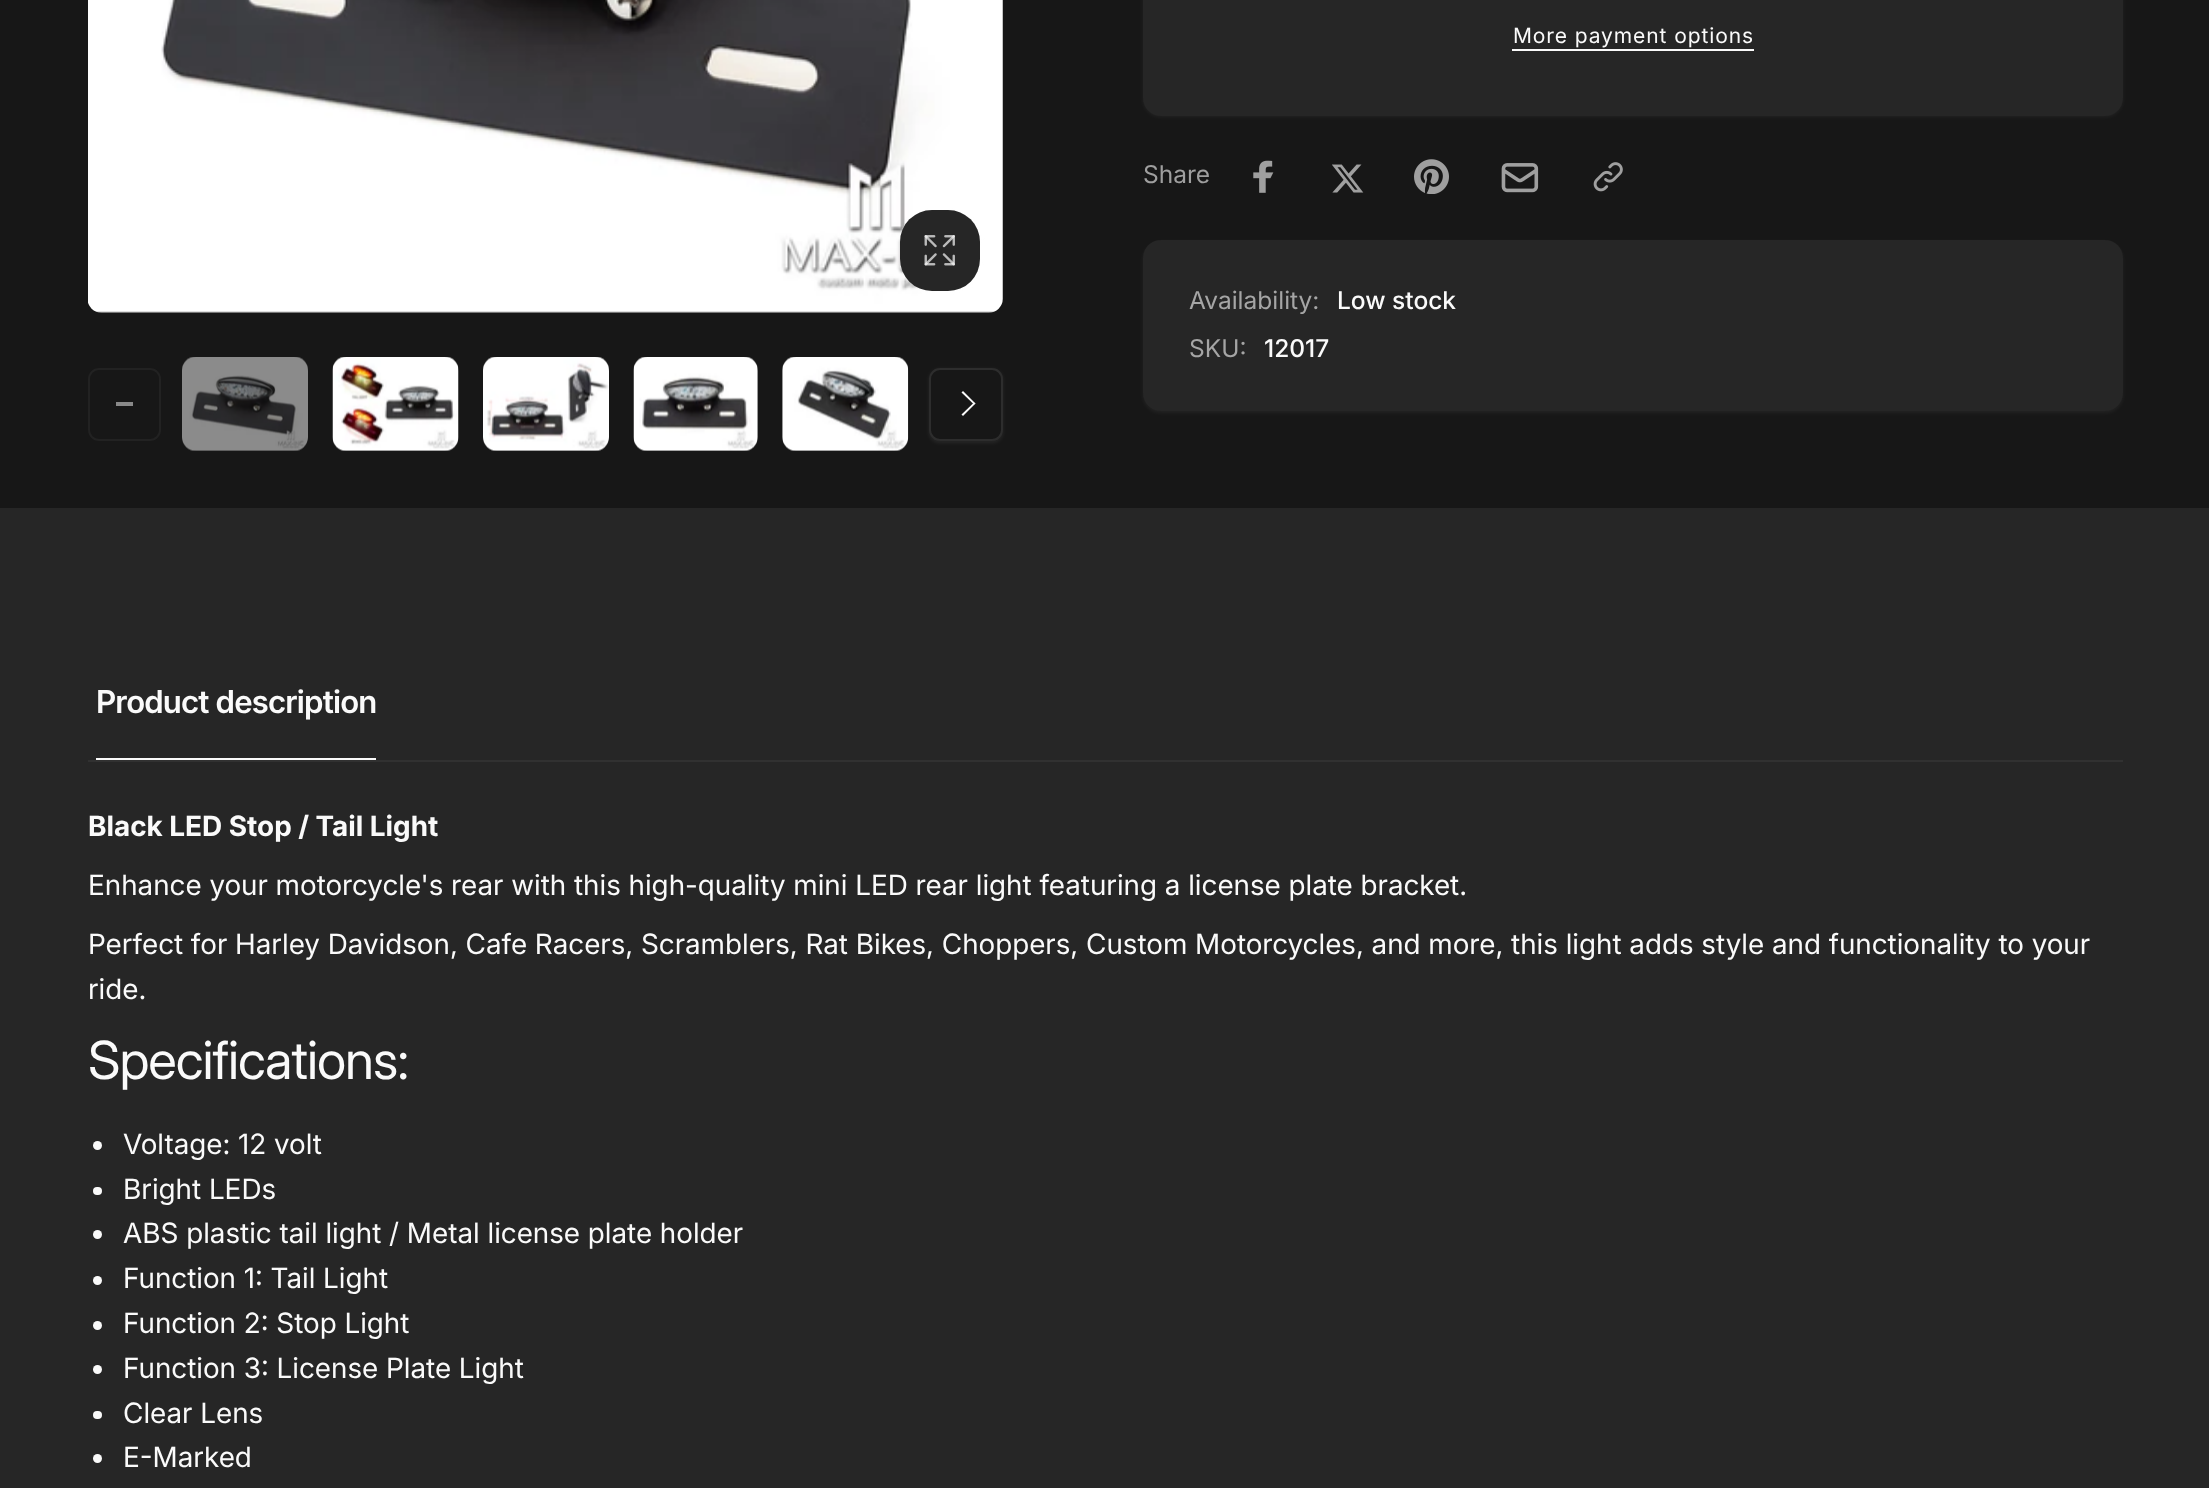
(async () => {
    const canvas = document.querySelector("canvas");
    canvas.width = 2209;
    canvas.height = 1488;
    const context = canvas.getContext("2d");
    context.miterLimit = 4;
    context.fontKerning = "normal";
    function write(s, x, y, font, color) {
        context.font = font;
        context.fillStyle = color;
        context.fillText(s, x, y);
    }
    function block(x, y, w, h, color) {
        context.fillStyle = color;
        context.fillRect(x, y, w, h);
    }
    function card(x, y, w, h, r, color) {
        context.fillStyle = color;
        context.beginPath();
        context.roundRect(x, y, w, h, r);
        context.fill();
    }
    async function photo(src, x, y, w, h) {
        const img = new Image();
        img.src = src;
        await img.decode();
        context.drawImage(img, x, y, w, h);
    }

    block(0, 0, 2209, 1488, "rgb(38, 38, 38)");
    block(0, 0, 2209, 508, "rgb(23, 23, 23)");
    await photo("media/1.png", 88, 0, 915, 313);
    context.fillStyle = "rgba(250, 250, 250, 0.1)";
    context.filter = "blur(2.5px)";
    context.beginPath();
    context.roundRect(900, 212, 80, 80, 32);
    context.fill();
    context.filter = "none";
    card(900, 210, 80, 81, 32, "rgb(38, 38, 38)");
    await photo("media/2.png", 924, 235, 31, 31);
    context.beginPath();
    context.roundRect(89, 369, 71, 71, 10);
    context.strokeStyle = "rgb(34, 34, 34)";
    context.lineWidth = 2;
    context.stroke();
    block(116, 402, 17, 4, "rgb(137, 137, 137)");
    await photo("media/3.png", 182, 357, 126, 94);
    await photo("media/4.png", 332, 357, 127, 94);
    await photo("media/5.png", 483, 357, 126, 94);
    await photo("media/6.png", 633, 357, 125, 94);
    await photo("media/7.png", 782, 357, 127, 94);
    context.save();
    context.beginPath();
    context.moveTo(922, 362);
    context.lineTo(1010, 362);
    context.lineTo(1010, 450);
    context.lineTo(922, 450);
    context.closePath();
    context.moveTo(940, 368);
    context.lineTo(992, 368);
    context.bezierCurveTo(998, 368, 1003, 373, 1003, 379);
    context.lineTo(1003, 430);
    context.bezierCurveTo(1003, 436, 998, 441, 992, 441);
    context.lineTo(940, 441);
    context.bezierCurveTo(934, 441, 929, 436, 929, 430);
    context.lineTo(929, 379);
    context.bezierCurveTo(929, 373, 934, 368, 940, 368);
    context.closePath();
    context.clip("evenodd");
    context.fillStyle = "rgba(250, 250, 250, 0.07)";
    context.filter = "blur(2px)";
    context.beginPath();
    context.roundRect(929, 369, 74, 74, 11);
    context.fill();
    context.filter = "none";
    context.restore();
    context.beginPath();
    context.roundRect(930, 369, 72, 71, 10);
    context.strokeStyle = "rgba(250, 250, 250, 0.1)";
    context.stroke();
    context.fillStyle = "rgb(250, 250, 250)";
    context.beginPath();
    context.moveTo(961.5, 392.5);
    context.lineTo(963, 391);
    context.lineTo(975.5, 403.5);
    context.lineTo(974, 404.5);
    context.closePath();
    context.fill();
    context.beginPath();
    context.moveTo(974, 402.5);
    context.lineTo(975.5, 403.5);
    context.lineTo(963, 416);
    context.lineTo(961.5, 414.5);
    context.closePath();
    context.fill();
    context.fillStyle = "rgba(250, 250, 250, 0.05)";
    context.filter = "blur(2px)";
    context.beginPath();
    context.roundRect(1143, -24, 980, 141, 18);
    context.fill();
    context.filter = "none";
    card(1143, -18, 980, 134, 18, "rgb(38, 38, 38)");
    context.letterSpacing = "0.9px";
    write("More payment options", 1513, 43, "21px Inter", "rgb(250, 250, 250)");
    block(1512, 49, 242, 2, "rgb(250, 250, 250)");
    context.letterSpacing = "0px";
    write("Share", 1143, 183, "24.5px Inter", "rgb(159, 159, 159)");
    await photo("media/8.png", 1253, 160, 21, 33);
    await photo("media/9.png", 1332, 164, 32, 29);
    await photo("media/10.png", 1414, 159, 35, 35);
    await photo("media/11.png", 1501, 163, 38, 30);
    await photo("media/12.png", 1593, 162, 30, 30);
    context.fillStyle = "rgba(250, 250, 250, 0.05)";
    context.filter = "blur(2px)";
    context.beginPath();
    context.roundRect(1143, 242, 980, 171, 18);
    context.fill();
    context.filter = "none";
    card(1143, 240, 980, 171, 18, "rgb(38, 38, 38)");
    write("Availability:", 1189, 309, "24.5px Inter", "rgb(165, 165, 165)");
    write("Low stock", 1337, 309, "500 24.5px Inter", "rgb(250, 250, 250)");
    write("SKU:", 1189, 357, "24.5px Inter", "rgb(165, 165, 165)");
    write("12017", 1264, 357, "500 24.5px Inter", "rgb(250, 250, 250)");
    block(88, 760, 2035, 2, "rgb(49, 49, 49)");
    block(96, 758, 280, 2, "rgb(250, 250, 250)");
    context.letterSpacing = "-0.8px";
    write("Product description", 96, 713, "600 31.5px Inter", "rgb(250, 250, 250)");
    context.letterSpacing = "0px";
    write("Black LED Stop / Tail Light", 88, 836, "bold 28px Inter", "rgb(250, 250, 250)");
    write("Enhance your motorcycle's rear with this high-quality mini LED rear light featuring a license plate bracket.", 88, 895, "28px 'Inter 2'", "rgb(250, 250, 250)");
    write("Perfect for Harley Davidson, Cafe Racers, Scramblers, Rat Bikes, Choppers, Custom Motorcycles, and more, this light adds style and functionality to your", 88, 954, "28px 'Inter 2'", "rgb(250, 250, 250)");
    write("ride.", 88, 999, "28px 'Inter 2'", "rgb(250, 250, 250)");
    context.letterSpacing = "-1px";
    write("Specifications:", 88, 1079, "52.5px 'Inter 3'", "rgb(250, 250, 250)");
    context.beginPath();
    context.arc(97.5, 1145.5, 4.5, 0, Math.PI * 2);
    context.fill();
    context.letterSpacing = "0px";
    write("Voltage: 12 volt", 123, 1154, "28px 'Inter 2'", "rgb(250, 250, 250)");
    card(93, 1187, 9, 8, 4, "rgb(250, 250, 250)");
    write("Bright LEDs", 123, 1199, "28px 'Inter 2'", "rgb(250, 250, 250)");
    context.beginPath();
    context.arc(97.5, 1234.5, 4.5, 0, Math.PI * 2);
    context.fill();
    write("ABS plastic tail light / Metal license plate holder", 123, 1243, "28px 'Inter 2'", "rgb(250, 250, 250)");
    context.beginPath();
    context.arc(97.5, 1280.5, 4.5, 0, Math.PI * 2);
    context.fill();
    write("Function 1: Tail Light", 123, 1288, "28px 'Inter 2'", "rgb(250, 250, 250)");
    context.beginPath();
    context.arc(97.5, 1325.5, 4.5, 0, Math.PI * 2);
    context.fill();
    write("Function 2: Stop Light", 123, 1333, "28px 'Inter 2'", "rgb(250, 250, 250)");
    context.beginPath();
    context.arc(97.5, 1369.5, 4.5, 0, Math.PI * 2);
    context.fill();
    write("Function 3: License Plate Light", 123, 1378, "28px 'Inter 2'", "rgb(250, 250, 250)");
    card(93, 1411, 9, 8, 4, "rgb(250, 250, 250)");
    write("Clear Lens", 123, 1423, "28px 'Inter 2'", "rgb(250, 250, 250)");
    context.beginPath();
    context.arc(97.5, 1458.5, 4.5, 0, Math.PI * 2);
    context.fill();
    write("E-Marked", 123, 1467, "28px 'Inter 2'", "rgb(250, 250, 250)");
})();
